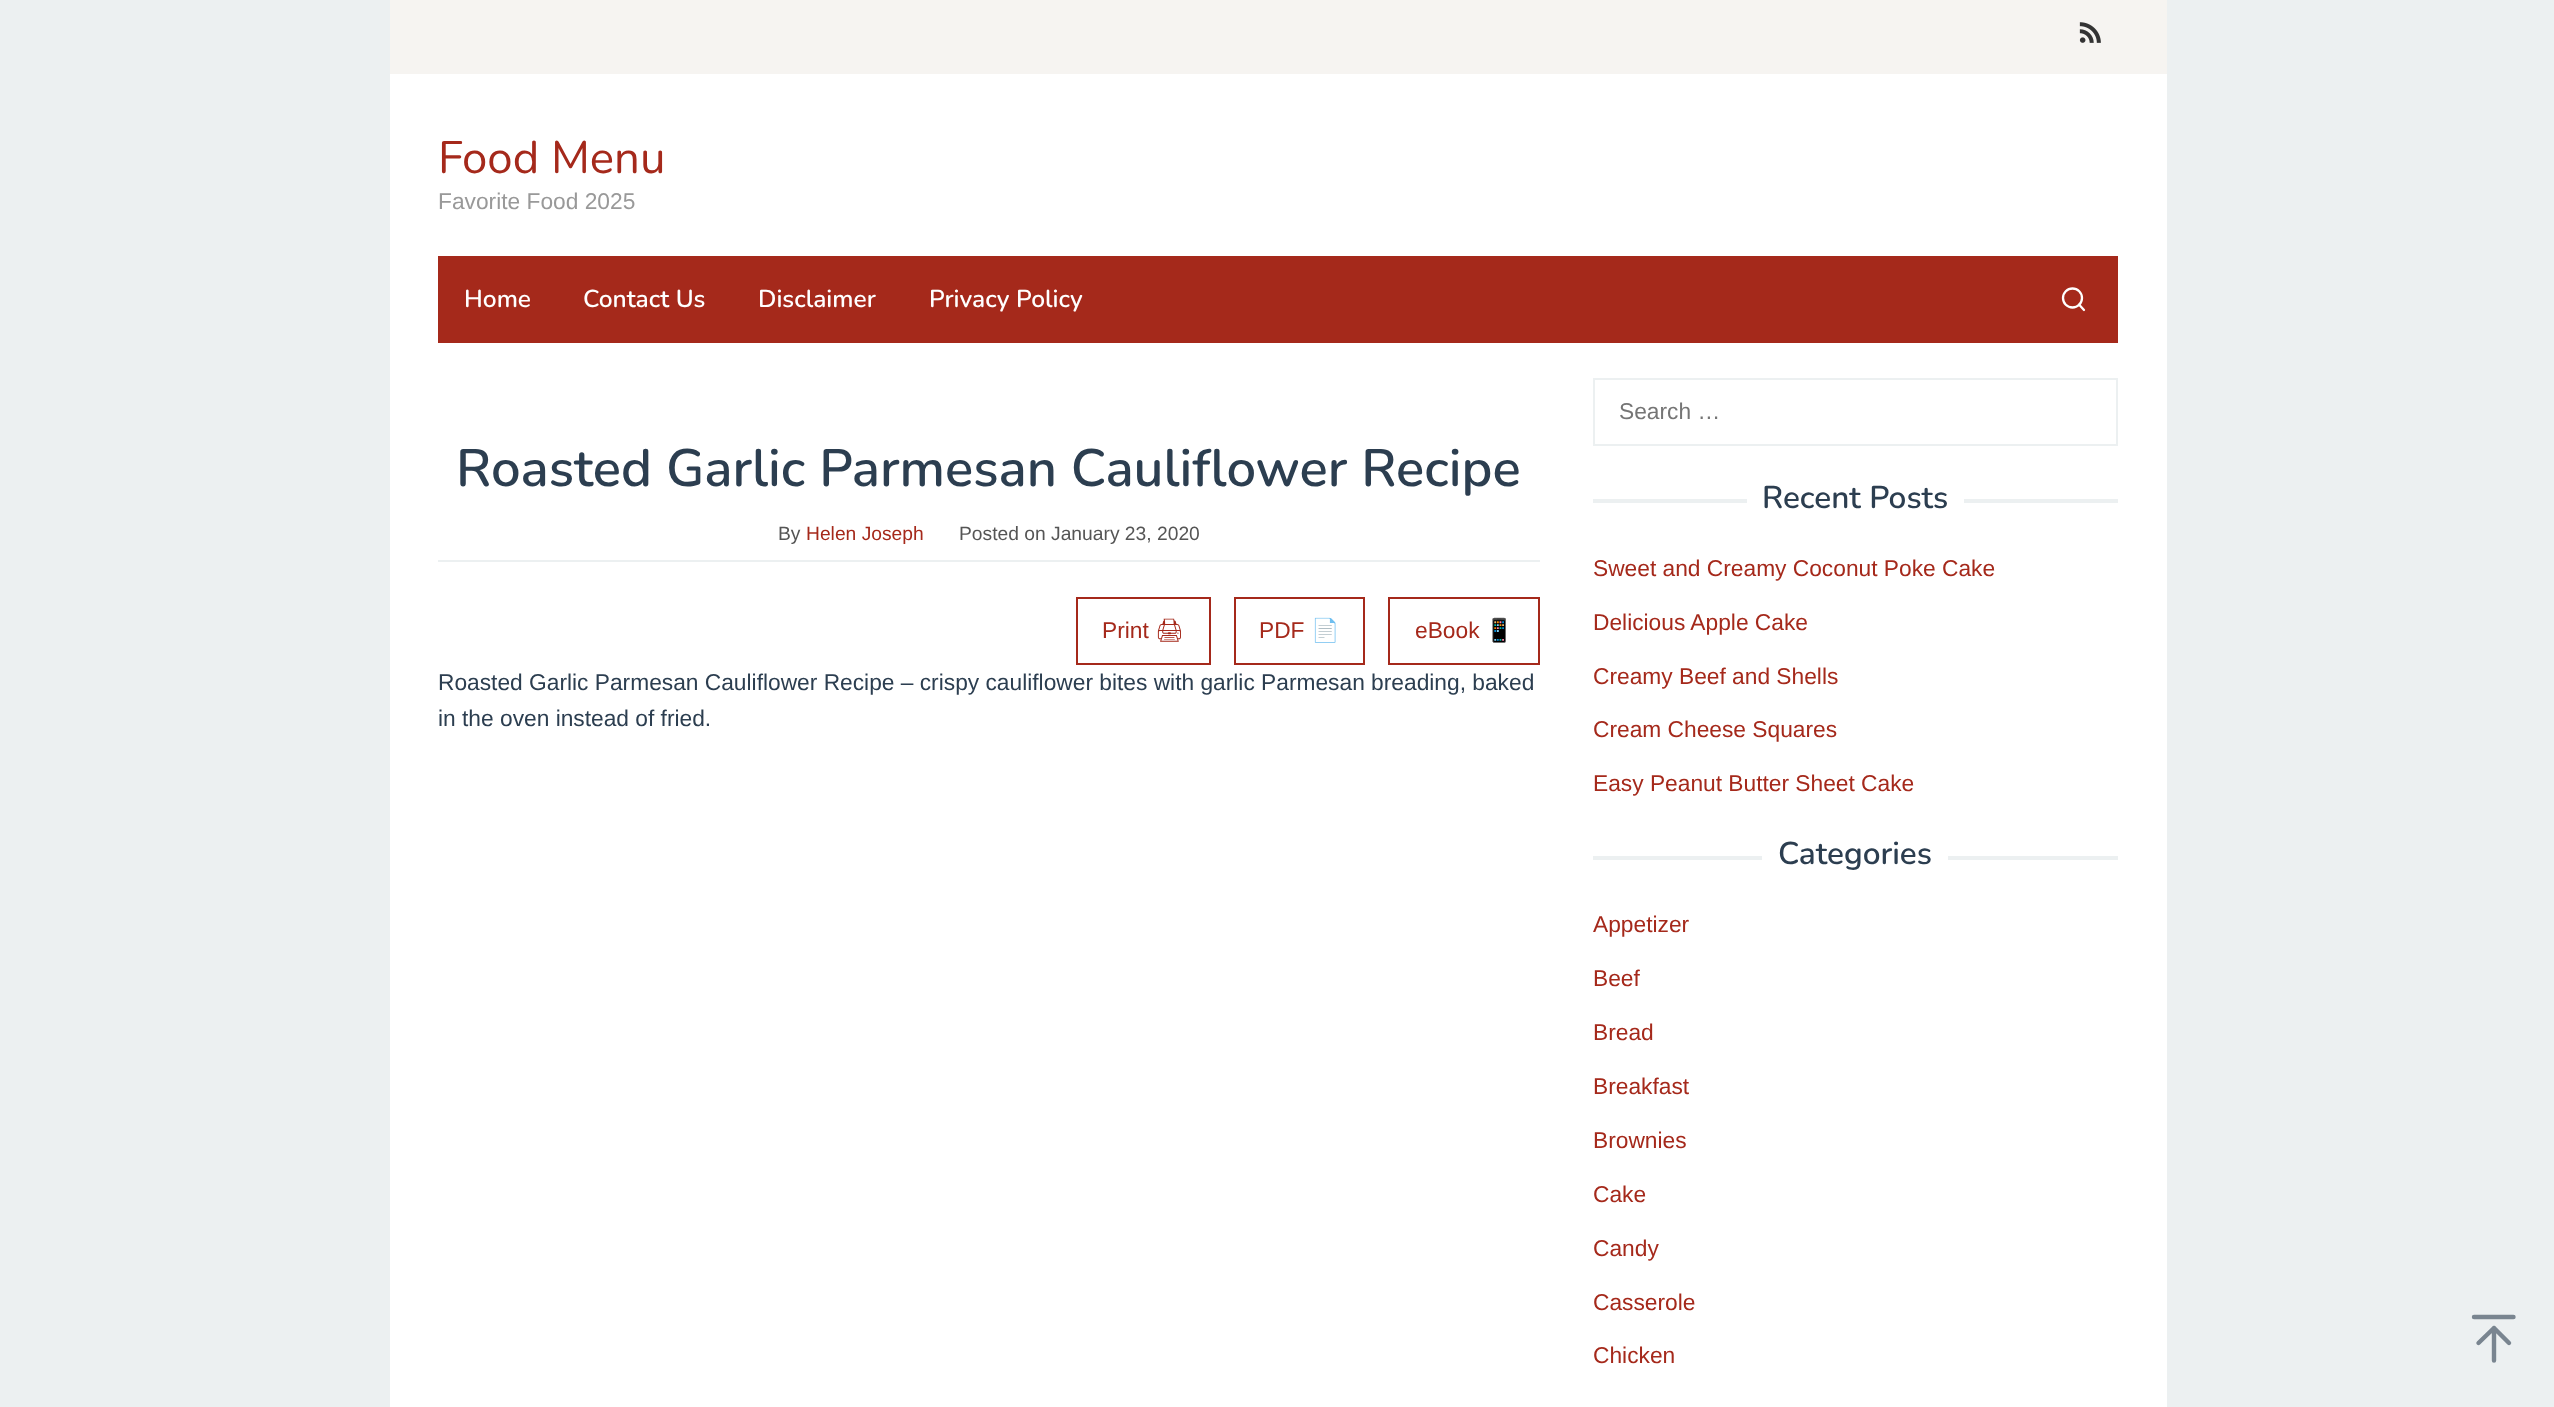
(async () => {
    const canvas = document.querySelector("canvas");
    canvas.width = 2554;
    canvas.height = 1407;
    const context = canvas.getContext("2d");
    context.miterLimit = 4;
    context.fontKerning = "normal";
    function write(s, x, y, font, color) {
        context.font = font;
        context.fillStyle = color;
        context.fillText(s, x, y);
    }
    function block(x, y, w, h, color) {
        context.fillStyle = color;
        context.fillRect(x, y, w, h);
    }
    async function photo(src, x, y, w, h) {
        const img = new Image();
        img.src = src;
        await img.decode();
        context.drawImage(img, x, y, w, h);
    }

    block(0, 0, 2554, 1407, "rgb(236, 240, 241)");
    block(390, 74, 1777, 182, "rgb(255, 255, 255)");
    block(390, 0, 1777, 74, "rgb(246, 244, 241)");
    await photo("media/1.png", 2079, 22, 22, 21);
    write("Food Menu", 438, 173, "45.5px Nunito", "rgb(165, 41, 27)");
    write("Favorite Food 2025", 438, 209, "22.75px Liberation Sans", "rgb(153, 153, 153)");
    block(390, 256, 1777, 1151, "rgb(255, 255, 255)");
    block(438, 256, 1680, 87, "rgb(165, 41, 27)");
    write("Home", 464, 307, "600 24.5px Nunito", "rgb(255, 255, 255)");
    write("Contact Us", 583, 307, "600 24.5px Nunito", "rgb(255, 255, 255)");
    write("Disclaimer", 758, 307, "600 24.5px Nunito", "rgb(255, 255, 255)");
    write("Privacy Policy", 929, 307, "600 24.5px Nunito", "rgb(255, 255, 255)");
    context.beginPath();
    context.arc(2072.5, 298, 9.5, 0, Math.PI * 2);
    context.strokeStyle = "rgb(255, 255, 255)";
    context.lineWidth = 2.3;
    context.stroke();
    context.beginPath();
    context.moveTo(2084, 310);
    context.lineTo(2079, 304.5);
    context.lineCap = "round";
    context.lineJoin = "round";
    context.stroke();
    block(438, 560, 1102, 2, "rgb(236, 240, 241)");
    write("Roasted Garlic Parmesan Cauliflower Recipe", 456, 486, "600 52.5px Nunito", "rgb(44, 62, 80)");
    write("By", 778, 540, "19.25px Liberation Sans", "rgb(85, 85, 85)");
    write("Helen Joseph", 806, 540, "19.25px Liberation Sans", "rgb(165, 41, 27)");
    write("Posted on January 23, 2020", 959, 540, "19.25px Liberation Sans", "rgb(85, 85, 85)");
    context.strokeStyle = "rgb(165, 41, 27)";
    context.lineWidth = 2;
    context.lineJoin = "miter";
    context.strokeRect(1077, 598, 133, 66);
    write("Print", 1102, 638, "22.75px Liberation Sans", "rgb(165, 41, 27)");
    write("🖨", 1155, 638, "500 22.75px Noto Emoji", "rgb(165, 41, 27)");
    context.strokeRect(1235, 598, 129, 66);
    write("PDF", 1259, 638, "22.75px Liberation Sans", "rgb(165, 41, 27)");
    write("📄", 1311, 638, "22.75px Noto Color Emoji", "rgb(165, 41, 27)");
    context.strokeRect(1389, 598, 150, 66);
    write("eBook", 1415, 638, "22.75px Liberation Sans", "rgb(165, 41, 27)");
    write("📱", 1485, 638, "22.75px Noto Color Emoji", "rgb(165, 41, 27)");
    write("Roasted Garlic Parmesan Cauliflower Recipe – crispy cauliflower bites with garlic Parmesan breading, baked", 438, 690, "22.75px Liberation Sans", "rgb(44, 62, 80)");
    write("in the oven instead of fried.", 438, 726, "22.75px Liberation Sans", "rgb(44, 62, 80)");
    context.strokeStyle = "rgb(236, 240, 241)";
    context.strokeRect(1594, 379, 523, 66);
    write("Search …", 1619, 419, "22.75px Liberation Sans", "rgb(117, 117, 117)");
    block(1593, 499, 154, 4, "rgb(236, 240, 241)");
    write("Recent Posts", 1762, 508, "600 31.5px Nunito", "rgb(44, 62, 80)");
    block(1964, 499, 154, 4, "rgb(236, 240, 241)");
    write("Sweet and Creamy Coconut Poke Cake", 1593, 576, "22.75px Liberation Sans", "rgb(165, 41, 27)");
    write("Delicious Apple Cake", 1593, 630, "22.75px Liberation Sans", "rgb(165, 41, 27)");
    write("Creamy Beef and Shells", 1593, 684, "22.75px Liberation Sans", "rgb(165, 41, 27)");
    write("Cream Cheese Squares", 1593, 737, "22.75px Liberation Sans", "rgb(165, 41, 27)");
    write("Easy Peanut Butter Sheet Cake", 1593, 791, "22.75px Liberation Sans", "rgb(165, 41, 27)");
    block(1593, 856, 169, 4, "rgb(236, 240, 241)");
    write("Categories", 1778, 864, "600 31.5px Nunito", "rgb(44, 62, 80)");
    block(1948, 856, 170, 4, "rgb(236, 240, 241)");
    write("Appetizer", 1593, 932, "22.75px Liberation Sans", "rgb(165, 41, 27)");
    write("Beef", 1593, 986, "22.75px Liberation Sans", "rgb(165, 41, 27)");
    write("Bread", 1593, 1040, "22.75px Liberation Sans", "rgb(165, 41, 27)");
    write("Breakfast", 1593, 1094, "22.75px Liberation Sans", "rgb(165, 41, 27)");
    write("Brownies", 1593, 1148, "22.75px Liberation Sans", "rgb(165, 41, 27)");
    write("Cake", 1593, 1202, "22.75px Liberation Sans", "rgb(165, 41, 27)");
    write("Candy", 1593, 1256, "22.75px Liberation Sans", "rgb(165, 41, 27)");
    write("Casserole", 1593, 1310, "22.75px Liberation Sans", "rgb(165, 41, 27)");
    write("Chicken", 1593, 1363, "22.75px Liberation Sans", "rgb(165, 41, 27)");
    context.beginPath();
    context.moveTo(2494, 1360.5);
    context.lineTo(2494, 1328);
    context.moveTo(2478.5, 1343);
    context.lineTo(2494, 1328);
    context.lineTo(2509, 1343);
    context.moveTo(2474, 1317);
    context.lineTo(2513.5, 1317);
    context.strokeStyle = "rgb(121, 133, 144)";
    context.lineWidth = 4.4;
    context.lineJoin = "round";
    context.stroke();
})();
